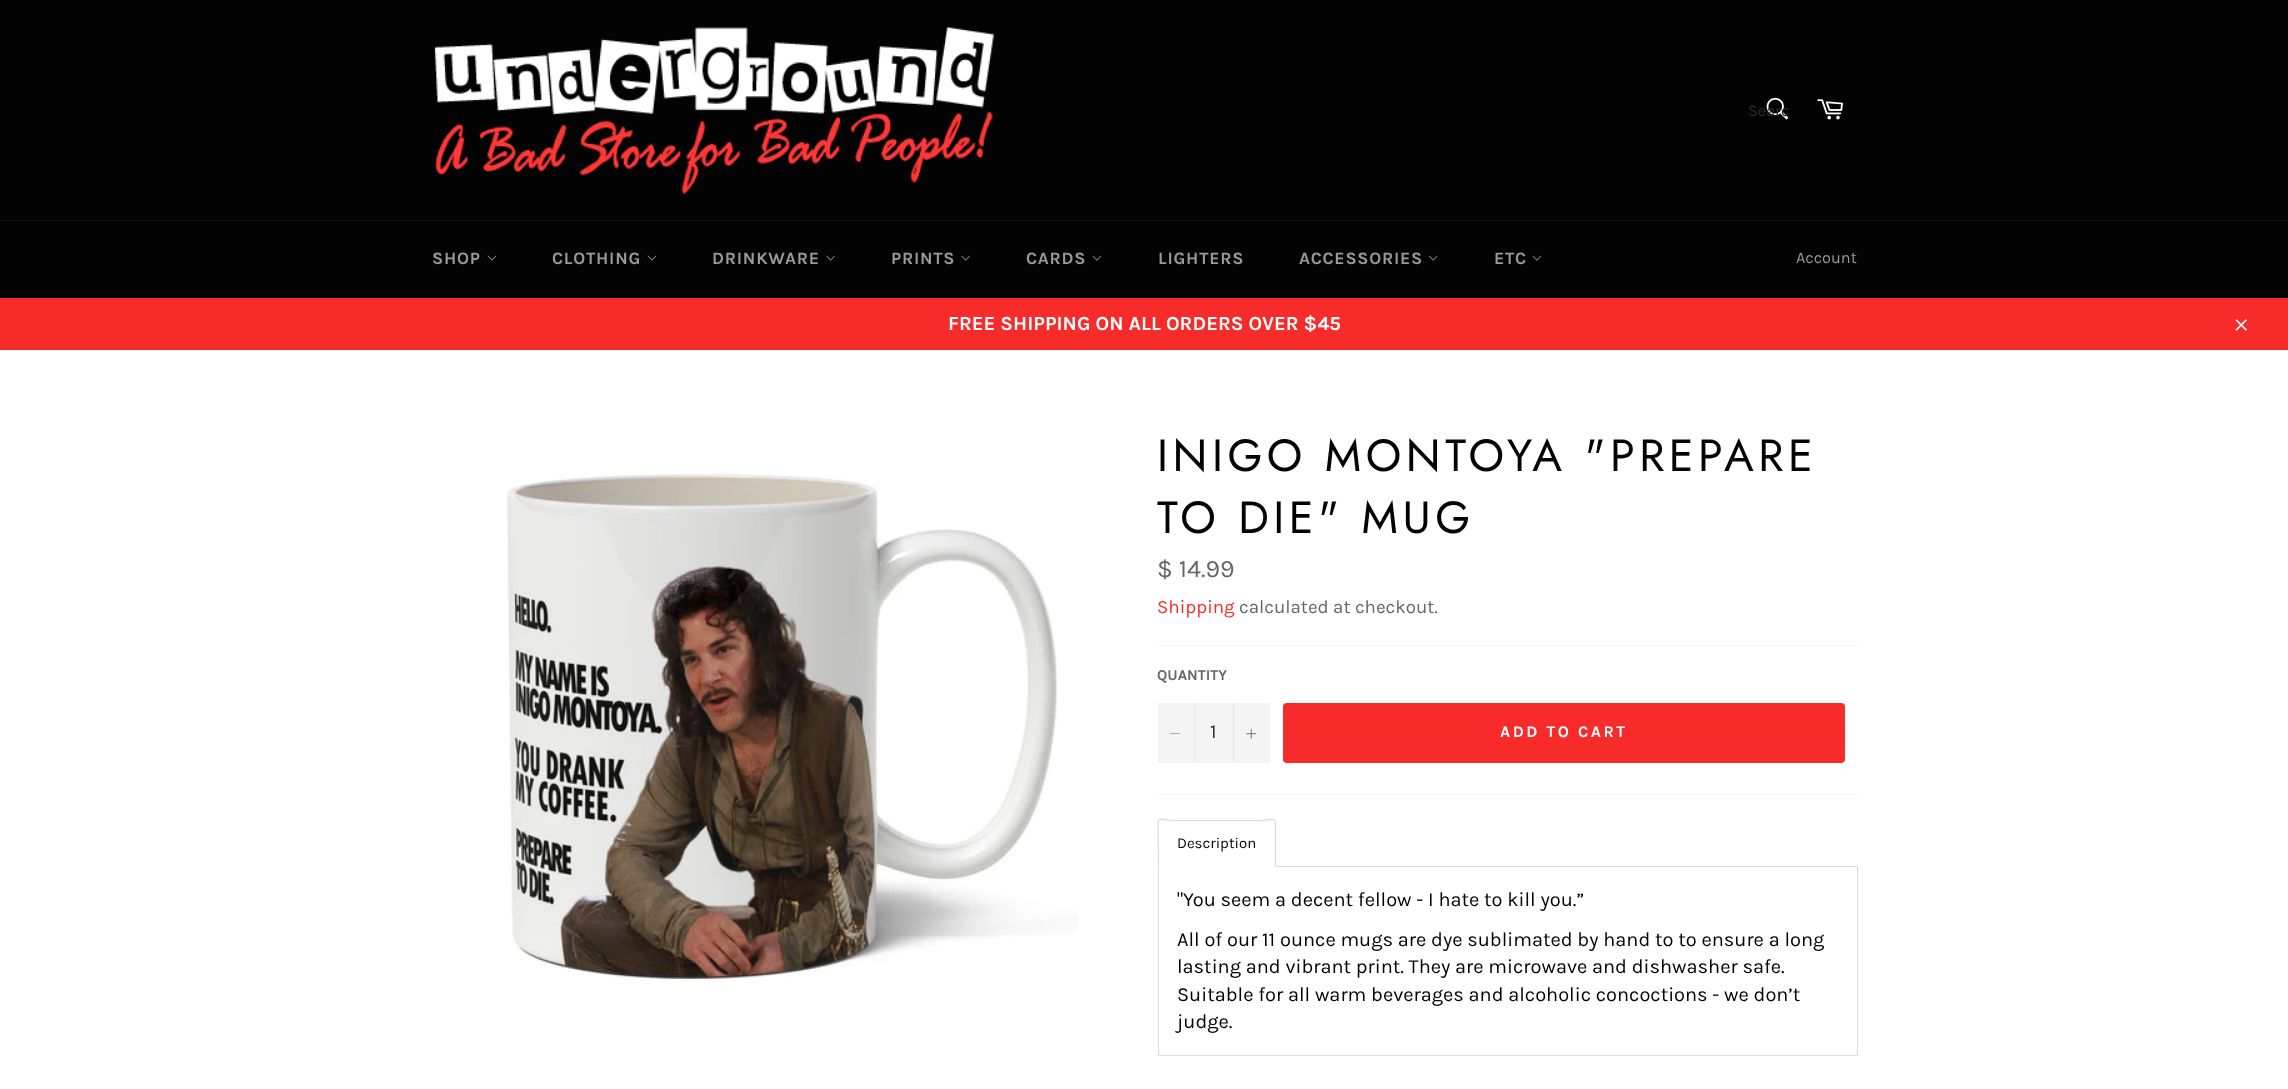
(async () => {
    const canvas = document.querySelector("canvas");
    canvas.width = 2288;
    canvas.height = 1089;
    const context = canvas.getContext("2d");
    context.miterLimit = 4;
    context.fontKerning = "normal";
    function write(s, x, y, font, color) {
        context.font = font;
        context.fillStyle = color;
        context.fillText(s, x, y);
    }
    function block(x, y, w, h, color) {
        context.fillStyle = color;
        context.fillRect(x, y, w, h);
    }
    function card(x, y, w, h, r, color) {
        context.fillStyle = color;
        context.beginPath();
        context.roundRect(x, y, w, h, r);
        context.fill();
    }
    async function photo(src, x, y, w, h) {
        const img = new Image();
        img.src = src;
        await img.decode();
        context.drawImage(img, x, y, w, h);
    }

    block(0, 0, 2288, 1089, "rgb(3, 3, 3)");
    await photo("media/1.png", 434, 27, 560, 167);
    await photo("media/2.png", 1766, 97, 23, 23);
    context.save();
    context.beginPath();
    context.rect(1748, 101, 40, 19);
    context.clip();
    write("Searc", 1748, 116, "16.25px Karla", "rgb(44, 44, 44)");
    context.restore();
    await photo("media/3.png", 1817, 99, 26, 21);
    block(0, 220, 2288, 1, "rgb(16, 16, 16)");
    context.letterSpacing = "0.75px";
    write("SHOP", 432, 264, "bold 17.5px Karla", "rgb(154, 154, 154)");
    await photo("media/4.png", 487, 255, 10, 6);
    write("CLOTHING", 552, 264, "bold 17.5px Karla", "rgb(154, 154, 154)");
    await photo("media/4.png", 647, 255, 10, 6);
    write("DRINKWARE", 712, 264, "bold 17.5px Karla", "rgb(154, 154, 154)");
    await photo("media/5.png", 826, 255, 9, 6);
    write("PRINTS", 891, 264, "bold 17.5px Karla", "rgb(154, 154, 154)");
    await photo("media/5.png", 961, 255, 9, 6);
    write("CARDS", 1026, 264, "bold 17.5px Karla", "rgb(154, 154, 154)");
    await photo("media/4.png", 1092, 255, 10, 6);
    write("LIGHTERS", 1158, 264, "bold 17.5px Karla", "rgb(154, 154, 154)");
    write("ACCESSORIES", 1299, 264, "bold 17.5px Karla", "rgb(154, 154, 154)");
    await photo("media/6.png", 1428, 255, 10, 6);
    write("ETC", 1494, 264, "bold 17.5px Karla", "rgb(154, 154, 154)");
    await photo("media/4.png", 1532, 255, 10, 6);
    context.letterSpacing = "0px";
    write("Account", 1796, 263, "16.25px Karla", "rgb(154, 154, 154)");
    block(0, 298, 2288, 52, "rgb(248, 43, 43)");
    write("FREE SHIPPING ON ALL ORDERS OVER $45", 948, 330, "bold 20px Karla", "rgb(255, 255, 255)");
    await photo("media/7.png", 2235, 319, 12, 12);
    block(0, 350, 2288, 739, "rgb(255, 255, 255)");
    await photo("media/8.png", 506, 473, 572, 508);
    context.letterSpacing = "4.5px";
    write("INIGO MONTOYA \"PREPARE", 1157, 471, "45px Jost", "rgb(3, 3, 3)");
    write("TO DIE\" MUG", 1157, 533, "45px Jost", "rgb(3, 3, 3)");
    context.letterSpacing = "0px";
    write("$ 14.99", 1157, 577, "25px Karla", "rgb(102, 102, 102)");
    write("Shipping", 1157, 613, "18.75px Karla", "rgb(248, 43, 43)");
    write("calculated at checkout.", 1239, 613, "18.75px Karla", "rgb(102, 102, 102)");
    block(1158, 645, 700, 1, "rgb(247, 247, 247)");
    write("QUANTITY", 1157, 680, "bold 15px Karla", "rgb(102, 102, 102)");
    block(1158, 703, 112, 60, "rgb(244, 244, 244)");
    block(1194, 703, 1, 60, "rgb(231, 231, 231)");
    context.fillStyle = "rgb(102, 102, 102)";
    context.beginPath();
    context.moveTo(1180, 733.5);
    context.lineTo(1180, 734);
    context.lineTo(1170, 734);
    context.lineTo(1170, 733.5);
    context.closePath();
    context.fill("evenodd");
    write("1", 1210, 738, "20px Karla", "rgb(51, 51, 51)");
    block(1233, 703, 1, 60, "rgb(231, 231, 231)");
    await photo("media/9.png", 1246, 729, 10, 10);
    card(1283, 703, 562, 60, 4, "rgb(248, 43, 43)");
    context.letterSpacing = "2.5px";
    write("ADD TO CART", 1500, 737, "bold 16.25px Karla", "rgb(255, 255, 255)");
    block(1158, 794, 700, 1, "rgb(247, 247, 247)");
    context.beginPath();
    context.roundRect(1158.5, 866.5, 699, 189, 0.5);
    context.strokeStyle = "rgb(219, 218, 218)";
    context.stroke();
    card(1158, 820, 118, 48, 1, "rgb(255, 255, 255)");
    context.beginPath();
    context.moveTo(1158.5, 866.5);
    context.lineTo(1158, 829);
    context.bezierCurveTo(1158, 814.5, 1157, 820.5, 1178, 820.5);
    context.lineTo(1255.5, 820.5);
    context.bezierCurveTo(1277, 820.5, 1275.5, 814.5, 1275.5, 829);
    context.lineTo(1275.5, 866.5);
    context.lineWidth = 1.2;
    context.stroke();
    context.letterSpacing = "0px";
    write("Description", 1177, 848, "15px Karla", "rgb(3, 3, 3)");
    write("\"You seem a decent fellow - I hate to kill you.”", 1177, 906, "20px Karla", "rgb(3, 3, 3)");
    write("All of our 11 ounce mugs are dye sublimated by hand to to ensure a long", 1177, 946, "20px Karla", "rgb(3, 3, 3)");
    write("lasting and vibrant print. They are microwave and dishwasher safe.", 1177, 973, "20px Karla", "rgb(3, 3, 3)");
    write("Suitable for all warm beverages and alcoholic concoctions - we don’t", 1177, 1001, "20px Karla", "rgb(3, 3, 3)");
    write("judge.", 1177, 1028, "20px Karla", "rgb(3, 3, 3)");
})();
